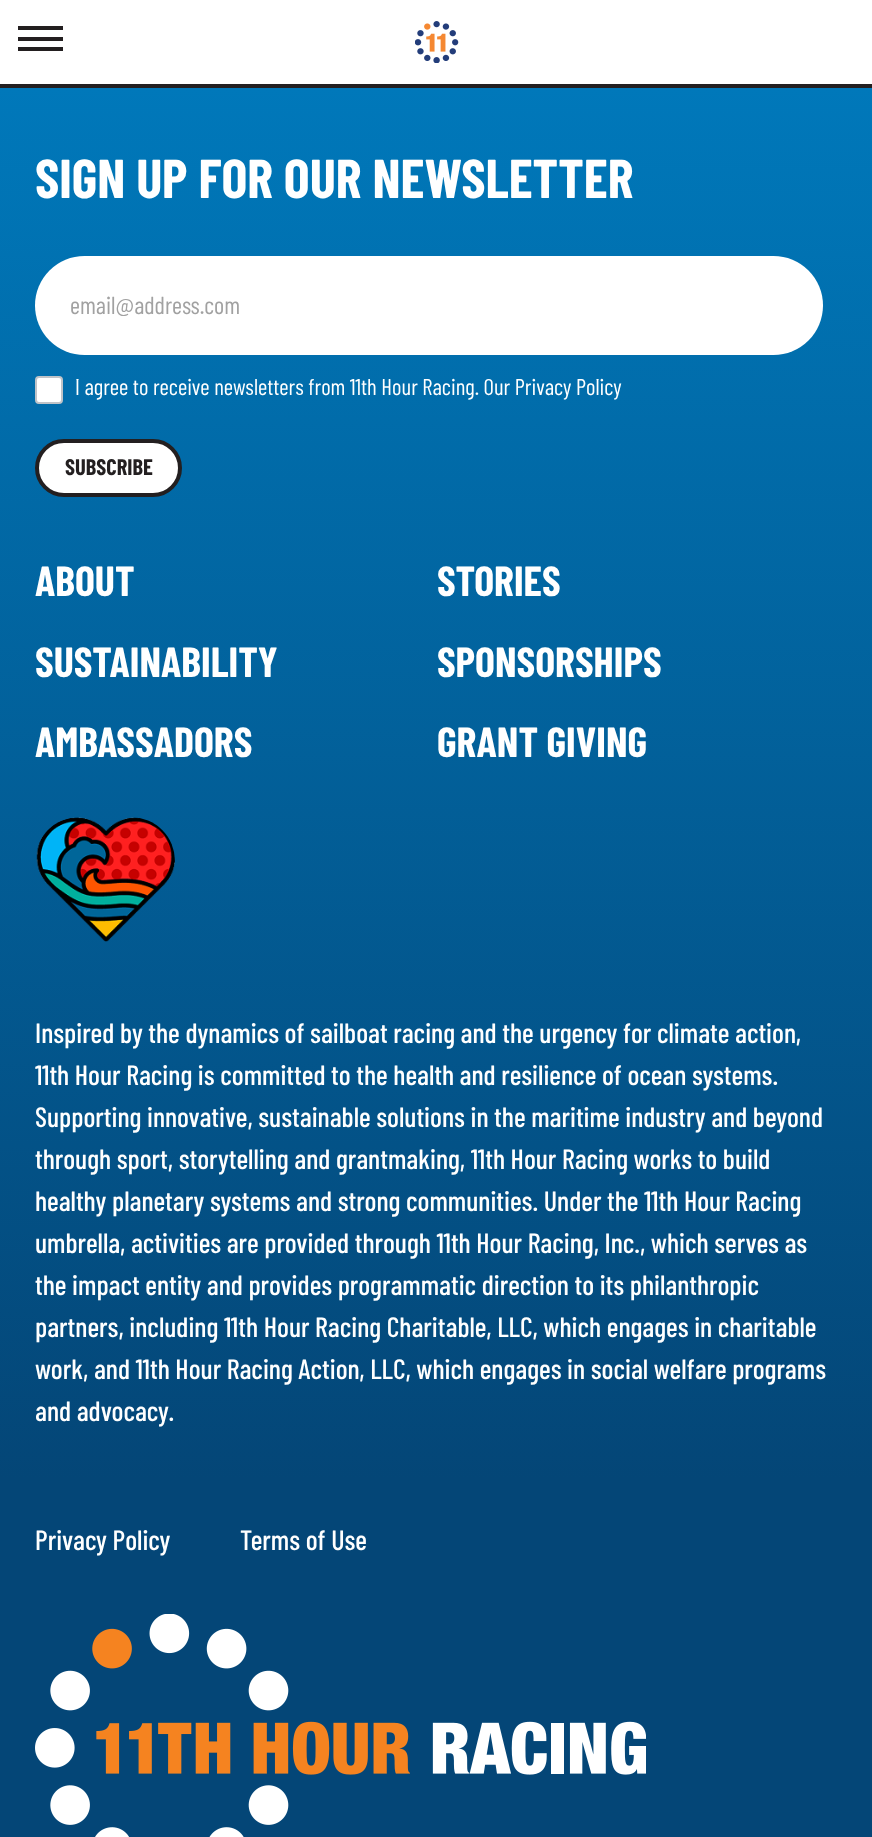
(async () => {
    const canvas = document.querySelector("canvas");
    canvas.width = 872;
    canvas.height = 1837;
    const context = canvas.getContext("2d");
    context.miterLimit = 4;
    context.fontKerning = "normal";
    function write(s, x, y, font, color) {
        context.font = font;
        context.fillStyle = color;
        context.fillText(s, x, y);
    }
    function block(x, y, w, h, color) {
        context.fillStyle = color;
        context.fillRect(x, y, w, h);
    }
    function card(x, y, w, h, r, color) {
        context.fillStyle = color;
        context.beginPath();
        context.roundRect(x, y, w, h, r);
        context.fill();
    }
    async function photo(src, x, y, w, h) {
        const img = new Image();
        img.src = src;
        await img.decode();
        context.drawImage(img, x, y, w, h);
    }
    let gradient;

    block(0, 0, 872, 1837, "rgb(255, 255, 255)");
    block(0, 84, 872, 4, "rgb(35, 31, 32)");
    block(18, 47, 45, 4, "rgb(35, 31, 32)");
    block(18, 26, 45, 4, "rgb(35, 31, 32)");
    block(18, 37, 45, 4, "rgb(35, 31, 32)");
    await photo("media/1.png", 415, 21, 44, 42);
    gradient = context.createLinearGradient(437, 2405, 437, 88);
    gradient.addColorStop(0, "rgb(4, 70, 119)");
    gradient.addColorStop(0.4, "rgb(4, 70, 119)");
    gradient.addColorStop(1, "rgb(0, 120, 186)");
    context.fillStyle = gradient;
    context.fillRect(0, 88, 872, 1749);
    write("SIGN UP FOR OUR NEWSLETTER", 35, 198, "bold 54.6px Barlow Condensed", "rgb(255, 255, 255)");
    card(35, 256, 788, 99, 49.5, "rgb(255, 255, 255)");
    write("email@address.com", 70, 314, "24.5px Barlow Condensed", "rgb(161, 161, 161)");
    context.fillStyle = "rgb(255, 255, 255)";
    context.beginPath();
    context.roundRect(36, 377, 26, 26, 3);
    context.fill();
    context.strokeStyle = "rgb(191, 195, 200)";
    context.lineWidth = 2;
    context.stroke();
    write("I agree to receive newsletters from 11th Hour Racing. Our Privacy Policy", 75, 395, "22.75px Barlow Condensed", "rgb(255, 255, 255)");
    context.beginPath();
    context.roundRect(37, 441, 143, 54, 27);
    context.fill();
    context.strokeStyle = "rgb(35, 31, 32)";
    context.lineWidth = 4;
    context.stroke();
    write("SUBSCRIBE", 65, 475, "bold 22.5px Barlow Condensed", "rgb(35, 31, 32)");
    write("ABOUT", 35, 596, "bold 42px Barlow Condensed", "rgb(255, 255, 255)");
    write("STORIES", 437, 596, "bold 42px Barlow Condensed", "rgb(255, 255, 255)");
    write("SUSTAINABILITY", 35, 677, "bold 42px Barlow Condensed", "rgb(255, 255, 255)");
    write("SPONSORSHIPS", 437, 677, "bold 42px Barlow Condensed", "rgb(255, 255, 255)");
    write("AMBASSADORS", 35, 757, "bold 42px Barlow Condensed", "rgb(255, 255, 255)");
    write("GRANT GIVING", 437, 757, "bold 42px Barlow Condensed", "rgb(255, 255, 255)");
    await photo("media/2.png", 36, 817, 139, 125);
    write("Inspired by the dynamics of sailboat racing and the urgency for climate action,", 35, 1043, "500 28px Barlow Condensed", "rgb(255, 255, 255)");
    write("11th Hour Racing is committed to the health and resilience of ocean systems.", 35, 1085, "500 28px Barlow Condensed", "rgb(255, 255, 255)");
    write("Supporting innovative, sustainable solutions in the maritime industry and beyond", 35, 1127, "500 28px Barlow Condensed", "rgb(255, 255, 255)");
    write("through sport, storytelling and grantmaking, 11th Hour Racing works to build", 35, 1169, "500 28px Barlow Condensed", "rgb(255, 255, 255)");
    write("healthy planetary systems and strong communities. Under the 11th Hour Racing", 35, 1211, "500 28px Barlow Condensed", "rgb(255, 255, 255)");
    write("umbrella, activities are provided through 11th Hour Racing, Inc., which serves as", 35, 1253, "500 28px Barlow Condensed", "rgb(255, 255, 255)");
    write("the impact entity and provides programmatic direction to its philanthropic", 35, 1295, "500 28px Barlow Condensed", "rgb(255, 255, 255)");
    write("partners, including 11th Hour Racing Charitable, LLC, which engages in charitable", 35, 1337, "500 28px Barlow Condensed", "rgb(255, 255, 255)");
    write("work, and 11th Hour Racing Action, LLC, which engages in social welfare programs", 35, 1379, "500 28px Barlow Condensed", "rgb(255, 255, 255)");
    write("and advocacy.", 35, 1421, "500 28px Barlow Condensed", "rgb(255, 255, 255)");
    write("Privacy Policy", 35, 1550, "500 28px Barlow Condensed", "rgb(255, 255, 255)");
    write("Terms of Use", 240, 1550, "500 28px Barlow Condensed", "rgb(255, 255, 255)");
    await photo("media/3.png", 35, 1614, 611, 223);
})();
